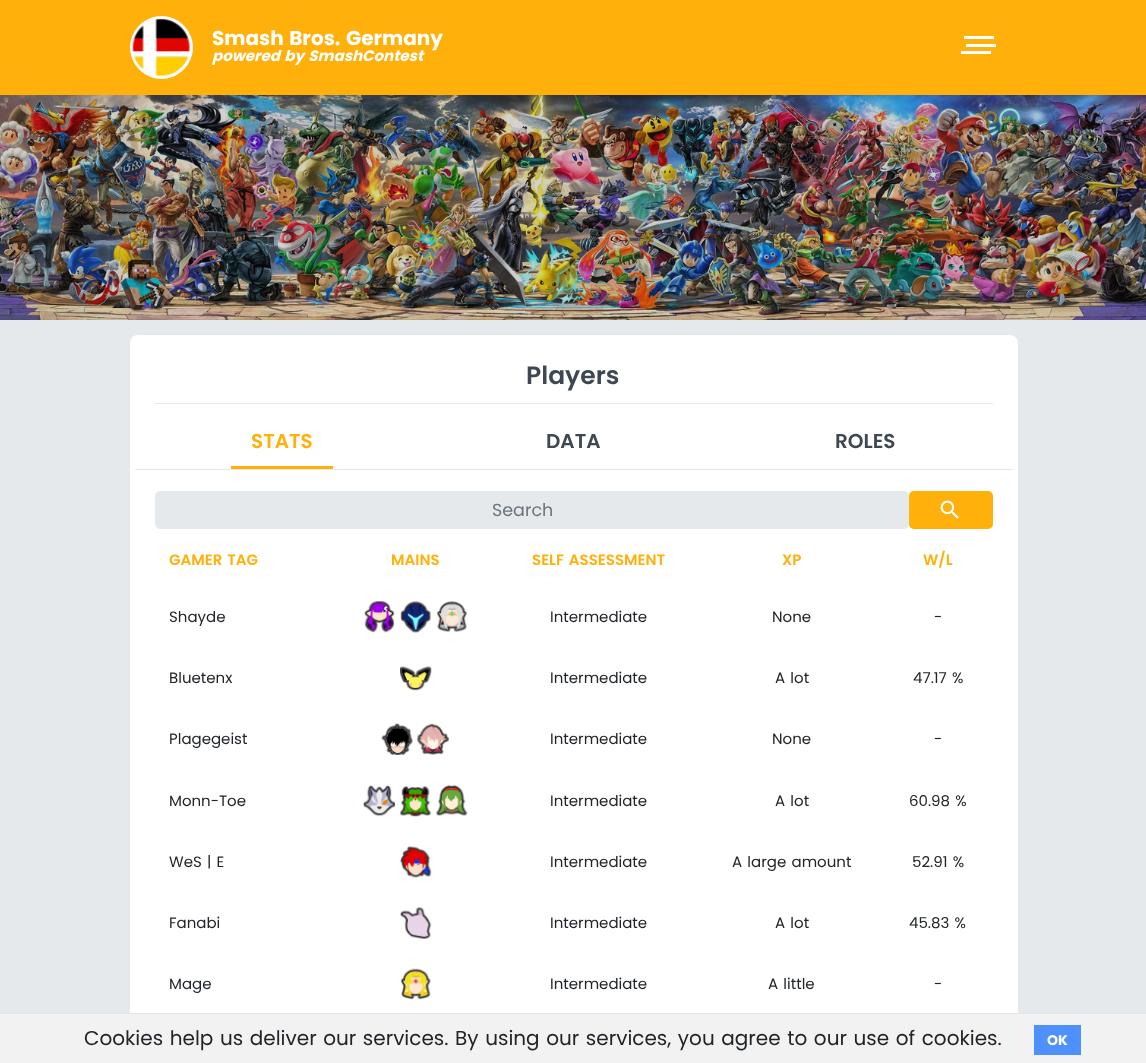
(async () => {
    const canvas = document.querySelector("canvas");
    canvas.width = 1146;
    canvas.height = 1063;
    const context = canvas.getContext("2d");
    context.miterLimit = 4;
    context.fontKerning = "normal";
    function write(s, x, y, font, color) {
        context.font = font;
        context.fillStyle = color;
        context.fillText(s, x, y);
    }
    function block(x, y, w, h, color) {
        context.fillStyle = color;
        context.fillRect(x, y, w, h);
    }
    function card(x, y, w, h, r, color) {
        context.fillStyle = color;
        context.beginPath();
        context.roundRect(x, y, w, h, r);
        context.fill();
    }
    async function photo(src, x, y, w, h) {
        const img = new Image();
        img.src = src;
        await img.decode();
        context.drawImage(img, x, y, w, h);
    }

    block(0, 0, 1146, 1063, "rgb(229, 233, 235)");
    block(0, 0, 1146, 95, "rgb(255, 176, 11)");
    context.fillStyle = "rgb(255, 255, 255)";
    context.beginPath();
    context.arc(161.5, 47.5, 31, 0, Math.PI * 2);
    context.fill();
    context.strokeStyle = "rgb(255, 255, 255)";
    context.stroke();
    await photo("media/1.png", 132, 18, 58, 59);
    context.wordSpacing = "1.25px";
    write("Smash Bros. Germany", 212, 45, "bold 20px Poppins", "rgb(255, 255, 255)");
    write("powered by SmashContest", 212, 61, "italic bold 15px Poppins", "rgb(255, 255, 255)");
    block(964, 36, 30, 3, "rgb(255, 255, 255)");
    block(966, 44, 30, 3, "rgb(255, 255, 255)");
    block(961, 51, 30, 3, "rgb(255, 255, 255)");
    await photo("media/2.png", 0, 95, 1146, 225);
    card(130, 335, 888, 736, 8, "rgb(255, 255, 255)");
    block(155, 403, 838, 1, "rgb(229, 233, 235)");
    context.wordSpacing = "0px";
    write("Players", 526, 384, "600 25px Poppins", "rgb(61, 72, 82)");
    block(135, 469, 878, 1, "rgb(229, 233, 235)");
    block(231, 466, 102, 3, "rgb(255, 176, 11)");
    write("STATS", 251, 448, "600 20px Poppins", "rgb(255, 176, 11)");
    write("DATA", 546, 448, "600 20px Poppins", "rgb(61, 72, 82)");
    write("ROLES", 835, 448, "600 20px Poppins", "rgb(61, 72, 82)");
    card(155, 491, 754, 38, 5, "rgb(229, 233, 235)");
    write("Search", 492, 516, "17.5px Poppins", "rgb(108, 117, 125)");
    card(909, 491, 84, 38, 5, "rgb(255, 176, 11)");
    await photo("media/3.png", 940, 500, 19, 19);
    context.wordSpacing = "1.25px";
    write("GAMER TAG", 169, 565, "600 15px Poppins", "rgb(255, 176, 11)");
    context.wordSpacing = "0px";
    write("MAINS", 391, 565, "600 15px Poppins", "rgb(255, 176, 11)");
    context.wordSpacing = "1.25px";
    write("SELF ASSESSMENT", 532, 565, "600 15px Poppins", "rgb(255, 176, 11)");
    context.wordSpacing = "0px";
    write("XP", 782, 565, "600 15px Poppins", "rgb(255, 176, 11)");
    write("W/L", 923, 565, "600 15px Poppins", "rgb(255, 176, 11)");
    write("Shayde", 169, 622, "15px Poppins", "rgb(33, 37, 41)");
    await photo("media/4.png", 364, 601, 31, 32);
    await photo("media/5.png", 400, 601, 32, 32);
    await photo("media/6.png", 436, 601, 32, 32);
    write("Intermediate", 550, 622, "15px Poppins", "rgb(33, 37, 41)");
    write("None", 772, 622, "15px Poppins", "rgb(33, 37, 41)");
    write("-", 934, 622, "15px Poppins", "rgb(33, 37, 41)");
    write("Bluetenx", 169, 683, "15px Poppins", "rgb(33, 37, 41)");
    await photo("media/7.png", 400, 666, 32, 25);
    write("Intermediate", 550, 683, "15px Poppins", "rgb(33, 37, 41)");
    context.wordSpacing = "1.25px";
    write("A lot", 775, 683, "15px Poppins", "rgb(33, 37, 41)");
    write("47.17 %", 913, 683, "15px Poppins", "rgb(33, 37, 41)");
    context.wordSpacing = "0px";
    write("Plagegeist", 169, 744, "15px Poppins", "rgb(33, 37, 41)");
    await photo("media/8.png", 381, 723, 32, 32);
    await photo("media/9.png", 417, 723, 32, 32);
    write("Intermediate", 550, 744, "15px Poppins", "rgb(33, 37, 41)");
    write("None", 772, 744, "15px Poppins", "rgb(33, 37, 41)");
    write("-", 934, 744, "15px Poppins", "rgb(33, 37, 41)");
    write("Monn-Toe", 169, 806, "15px Poppins", "rgb(33, 37, 41)");
    await photo("media/10.png", 363, 785, 32, 32);
    await photo("media/11.png", 400, 786, 32, 31);
    await photo("media/12.png", 436, 785, 32, 31);
    write("Intermediate", 550, 806, "15px Poppins", "rgb(33, 37, 41)");
    context.wordSpacing = "1.25px";
    write("A lot", 775, 806, "15px Poppins", "rgb(33, 37, 41)");
    write("60.98 %", 909, 806, "15px Poppins", "rgb(33, 37, 41)");
    write("WeS | E", 169, 867, "15px Poppins", "rgb(33, 37, 41)");
    await photo("media/13.png", 400, 846, 32, 32);
    context.wordSpacing = "0px";
    write("Intermediate", 550, 867, "15px Poppins", "rgb(33, 37, 41)");
    context.wordSpacing = "1.25px";
    write("A large amount", 732, 867, "15px Poppins", "rgb(33, 37, 41)");
    write("52.91 %", 912, 867, "15px Poppins", "rgb(33, 37, 41)");
    context.wordSpacing = "0px";
    write("Fanabi", 169, 928, "15px Poppins", "rgb(33, 37, 41)");
    await photo("media/14.png", 400, 907, 32, 32);
    write("Intermediate", 550, 928, "15px Poppins", "rgb(33, 37, 41)");
    context.wordSpacing = "1.25px";
    write("A lot", 775, 928, "15px Poppins", "rgb(33, 37, 41)");
    write("45.83 %", 909, 928, "15px Poppins", "rgb(33, 37, 41)");
    context.wordSpacing = "0px";
    write("Mage", 169, 989, "15px Poppins", "rgb(33, 37, 41)");
    await photo("media/15.png", 400, 968, 31, 32);
    write("Intermediate", 550, 989, "15px Poppins", "rgb(33, 37, 41)");
    context.wordSpacing = "1.25px";
    write("A little", 768, 989, "15px Poppins", "rgb(33, 37, 41)");
    context.wordSpacing = "0px";
    write("-", 934, 989, "15px Poppins", "rgb(33, 37, 41)");
    block(0, 1014, 1146, 49, "rgb(242, 242, 242)");
    block(0, 1013, 1146, 1, "rgb(228, 228, 228)");
    context.wordSpacing = "1.25px";
    write("Cookies help us deliver our services. By using our services, you agree to our use of cookies.", 84, 1045, "20px Poppins", "rgb(33, 37, 41)");
    block(1034, 1025, 47, 30, "rgb(77, 144, 254)");
    context.wordSpacing = "0px";
    write("OK", 1047, 1045, "bold 14px Poppins", "rgb(255, 255, 255)");
})();
